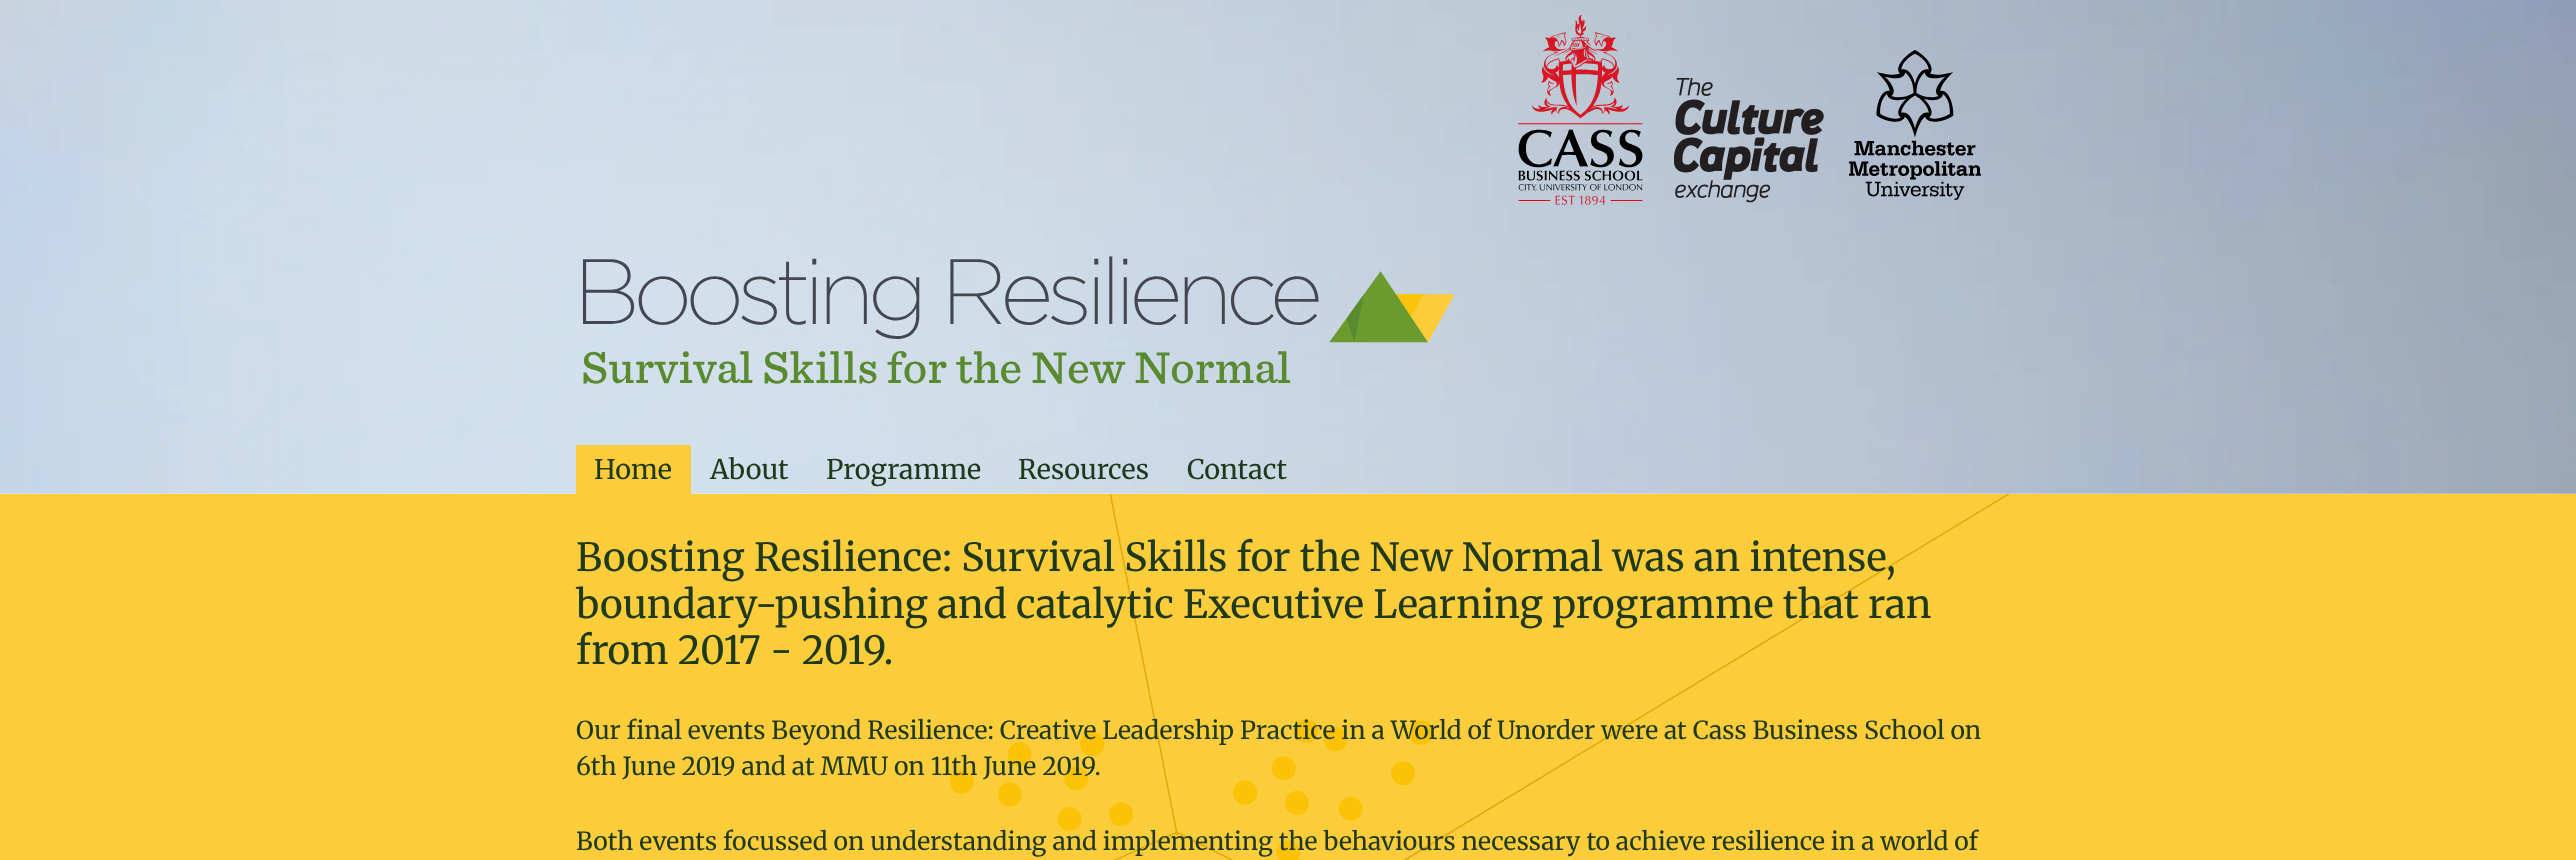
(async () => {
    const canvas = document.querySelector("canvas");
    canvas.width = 2576;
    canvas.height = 860;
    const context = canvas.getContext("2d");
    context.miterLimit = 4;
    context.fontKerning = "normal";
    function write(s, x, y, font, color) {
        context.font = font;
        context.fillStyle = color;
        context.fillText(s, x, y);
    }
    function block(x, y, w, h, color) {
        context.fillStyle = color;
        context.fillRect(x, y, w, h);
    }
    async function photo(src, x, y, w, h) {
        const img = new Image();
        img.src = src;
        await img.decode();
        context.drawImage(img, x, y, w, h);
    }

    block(0, 0, 2576, 860, "rgb(255, 255, 255)");
    await photo("media/1.png", 0, 0, 2576, 494);
    await photo("media/2.png", 1518, 14, 125, 191);
    await photo("media/3.png", 1674, 78, 150, 125);
    await photo("media/4.png", 1849, 50, 132, 150);
    await photo("media/5.png", 582, 256, 873, 128);
    block(576, 445, 115, 49, "rgb(252, 205, 59)");
    write("Home", 594, 479, "300 27px Merriweather", "rgb(30, 57, 28)");
    write("About", 710, 479, "300 27px Merriweather", "rgb(30, 57, 28)");
    write("Programme", 826, 479, "300 27px Merriweather", "rgb(30, 57, 28)");
    write("Resources", 1018, 479, "300 27px Merriweather", "rgb(30, 57, 28)");
    write("Contact", 1187, 479, "300 27px Merriweather", "rgb(30, 57, 28)");
    block(0, 494, 2576, 366, "rgb(252, 205, 59)");
    await photo("media/6.png", 949, 494, 1061, 366);
    write("Boosting Resilience: Survival Skills for the New Normal was an intense,", 576, 571, "300 38.75px Merriweather", "rgb(30, 57, 28)");
    write("boundary-pushing and catalytic Executive Learning programme that ran", 576, 618, "300 38.75px Merriweather", "rgb(30, 57, 28)");
    write("from 2017 - 2019.", 576, 664, "300 38.75px Merriweather", "rgb(30, 57, 28)");
    write("Our final events Beyond Resilience: Creative Leadership Practice in a World of Unorder were at Cass Business School on", 576, 739, "300 24.75px Merriweather", "rgb(30, 57, 28)");
    write("6th June 2019 and at MMU on 11th June 2019.", 576, 775, "300 24.75px Merriweather", "rgb(30, 57, 28)");
    write("Both events focussed on understanding and implementing the behaviours necessary to achieve resilience in a world of", 576, 850, "300 24.75px Merriweather", "rgb(30, 57, 28)");
})();
